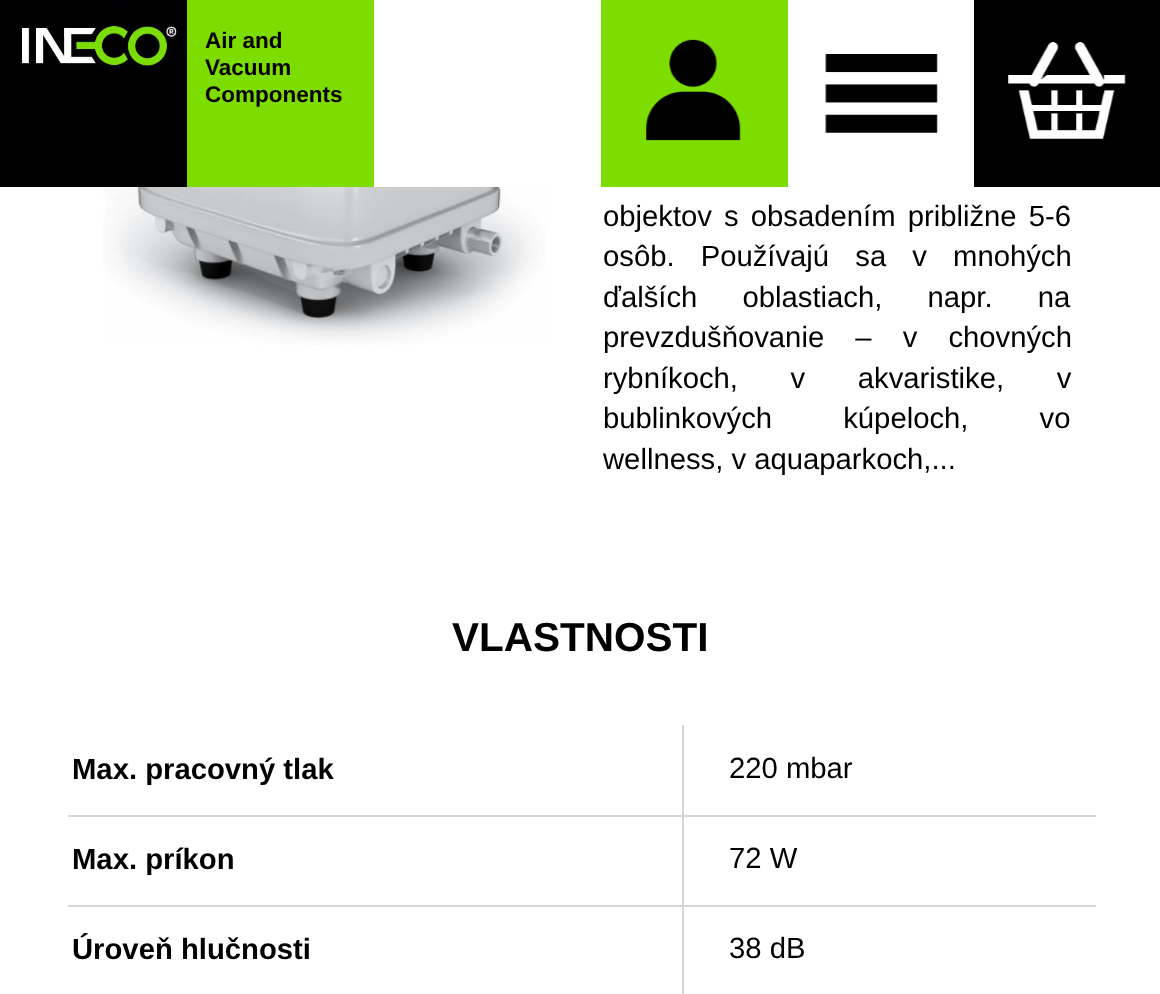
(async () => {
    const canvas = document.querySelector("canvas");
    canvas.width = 1160;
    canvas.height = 994;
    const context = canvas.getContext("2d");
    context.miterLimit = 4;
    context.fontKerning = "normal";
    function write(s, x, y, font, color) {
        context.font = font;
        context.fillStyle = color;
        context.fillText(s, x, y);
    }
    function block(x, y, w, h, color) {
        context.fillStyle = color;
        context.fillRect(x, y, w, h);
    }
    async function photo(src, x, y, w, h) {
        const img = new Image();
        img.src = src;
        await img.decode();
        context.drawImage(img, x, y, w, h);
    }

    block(0, 0, 1160, 994, "rgb(255, 255, 255)");
    await photo("media/1.png", 0, 0, 187, 187);
    block(187, 0, 187, 187, "rgb(125, 221, 0)");
    write("Air and", 205, 48, "bold 22.5px Liberation Sans", "rgb(0, 0, 0)");
    write("Vacuum", 205, 75, "bold 22.5px Liberation Sans", "rgb(0, 0, 0)");
    write("Components", 205, 102, "bold 22.5px Liberation Sans", "rgb(0, 0, 0)");
    block(601, 0, 187, 187, "rgb(125, 221, 0)");
    await photo("media/2.png", 646, 39, 95, 102);
    await photo("media/3.png", 825, 54, 113, 79);
    block(974, 0, 186, 187, "rgb(0, 0, 0)");
    await photo("media/4.png", 1008, 42, 118, 97);
    await photo("media/5.png", 103, 187, 443, 158);
    context.wordSpacing = "4px";
    write("objektov s obsadením približne 5-6", 603, 226, "29.25px Liberation Sans", "rgb(0, 0, 0)");
    context.wordSpacing = "18px";
    write("osôb. Používajú sa v mnohých", 603, 266, "29.25px Liberation Sans", "rgb(0, 0, 0)");
    context.wordSpacing = "37px";
    write("ďalších oblastiach, napr. na", 603, 307, "29.25px Liberation Sans", "rgb(0, 0, 0)");
    context.wordSpacing = "23px";
    write("prevzdušňovanie – v chovných", 603, 347, "29.25px Liberation Sans", "rgb(0, 0, 0)");
    context.wordSpacing = "44.5px";
    write("rybníkoch, v akvaristike, v", 603, 388, "29.25px Liberation Sans", "rgb(0, 0, 0)");
    context.wordSpacing = "63px";
    write("bublinkových kúpeloch, vo", 603, 428, "29.25px Liberation Sans", "rgb(0, 0, 0)");
    context.wordSpacing = "0px";
    write("wellness, v aquaparkoch,...", 603, 469, "29.25px Liberation Sans", "rgb(0, 0, 0)");
    write("VLASTNOSTI", 452, 651, "bold 40.5px Liberation Sans", "rgb(0, 0, 0)");
    write("Max. pracovný tlak", 72, 779, "bold 29.25px Liberation Sans", "rgb(0, 0, 0)");
    write("220 mbar", 729, 778, "29.25px Liberation Sans", "rgb(0, 0, 0)");
    block(68, 815, 1028, 2, "rgb(214, 212, 212)");
    write("Max. príkon", 72, 869, "bold 29.25px Liberation Sans", "rgb(0, 0, 0)");
    write("72 W", 729, 868, "29.25px Liberation Sans", "rgb(0, 0, 0)");
    block(68, 905, 1028, 2, "rgb(214, 212, 212)");
    block(682, 725, 2, 269, "rgb(214, 212, 212)");
    write("Úroveň hlučnosti", 72, 959, "bold 29.25px Liberation Sans", "rgb(0, 0, 0)");
    write("38 dB", 729, 958, "29.25px Liberation Sans", "rgb(0, 0, 0)");
})();
